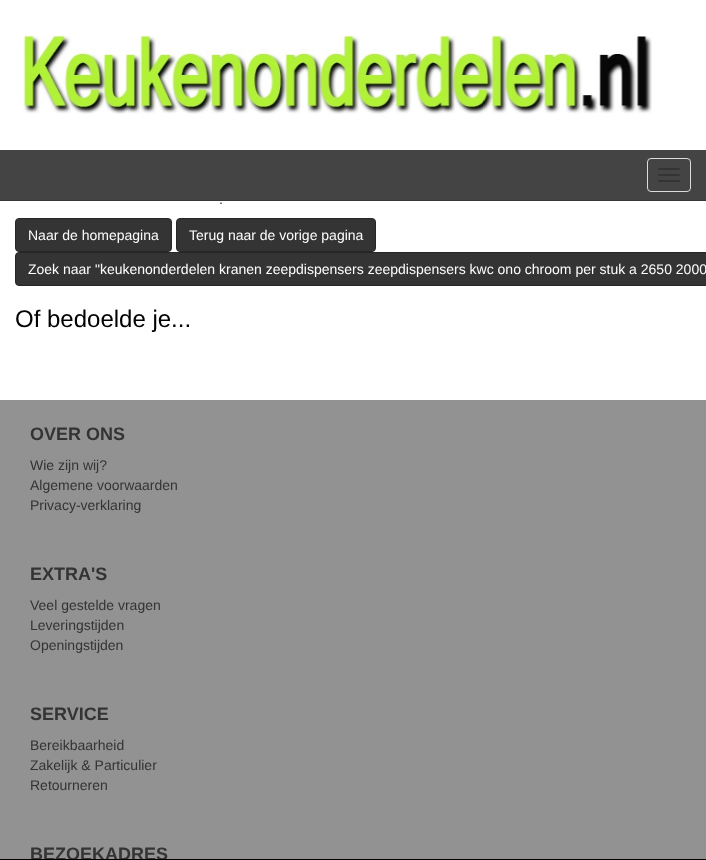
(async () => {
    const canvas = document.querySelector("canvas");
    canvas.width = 706;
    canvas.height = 860;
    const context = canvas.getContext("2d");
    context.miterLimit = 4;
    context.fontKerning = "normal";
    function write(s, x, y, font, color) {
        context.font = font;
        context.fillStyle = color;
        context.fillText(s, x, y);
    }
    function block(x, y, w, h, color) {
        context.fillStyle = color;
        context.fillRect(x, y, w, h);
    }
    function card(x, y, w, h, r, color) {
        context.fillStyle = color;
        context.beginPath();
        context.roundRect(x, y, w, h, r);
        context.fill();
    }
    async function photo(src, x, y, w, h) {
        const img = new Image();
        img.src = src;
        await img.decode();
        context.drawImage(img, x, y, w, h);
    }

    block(0, 0, 706, 860, "rgb(255, 255, 255)");
    await photo("media/1.png", 23, 35, 629, 79);
    block(0, 150, 706, 50, "rgb(68, 68, 68)");
    block(0, 200, 706, 1, "rgb(55, 55, 55)");
    context.beginPath();
    context.roundRect(647.5, 158.5, 43, 33, 3.5);
    context.strokeStyle = "rgb(221, 221, 221)";
    context.stroke();
    card(658, 168, 22, 2, 1, "rgb(52, 52, 52)");
    card(658, 174, 22, 2, 1, "rgb(52, 52, 52)");
    card(658, 180, 22, 2, 1, "rgb(52, 52, 52)");
    write(".", 219, 204, "14px Liberation Sans", "rgb(52, 52, 52)");
    context.beginPath();
    context.roundRect(15.5, 218.5, 156, 33, 3.5);
    context.fill();
    context.strokeStyle = "rgb(39, 39, 39)";
    context.stroke();
    write("Naar de homepagina", 28, 240, "14px Liberation Sans", "rgb(254, 254, 254)");
    context.fillStyle = "rgb(52, 52, 52)";
    context.beginPath();
    context.roundRect(176.5, 218.5, 199, 33, 3.5);
    context.fill();
    context.stroke();
    write("Terug naar de vorige pagina", 189, 240, "14px Liberation Sans", "rgb(254, 254, 254)");
    context.fillStyle = "rgb(52, 52, 52)";
    context.beginPath();
    context.roundRect(15.5, 252.5, 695, 33, 3.5);
    context.fill();
    context.stroke();
    write("Zoek naar \"keukenonderdelen kranen zeepdispensers zeepdispensers kwc ono chroom per stuk a 2650 2000", 28, 274, "14px Liberation Sans", "rgb(254, 254, 254)");
    write("Of bedoelde je...", 15, 327, "24px Liberation Sans", "rgb(1, 1, 1)");
    block(0, 400, 706, 459, "rgb(146, 146, 146)");
    write("OVER ONS", 30, 440, "bold 18px Liberation Sans", "rgb(52, 52, 52)");
    write("Wie zijn wij?", 30, 470, "14px Liberation Sans", "rgb(52, 52, 52)");
    write("Algemene voorwaarden", 30, 490, "14px Liberation Sans", "rgb(52, 52, 52)");
    write("Privacy-verklaring", 30, 510, "14px Liberation Sans", "rgb(52, 52, 52)");
    write("EXTRA'S", 30, 580, "bold 18px Liberation Sans", "rgb(52, 52, 52)");
    write("Veel gestelde vragen", 30, 610, "14px Liberation Sans", "rgb(52, 52, 52)");
    write("Leveringstijden", 30, 630, "14px Liberation Sans", "rgb(52, 52, 52)");
    write("Openingstijden", 30, 650, "14px Liberation Sans", "rgb(52, 52, 52)");
    write("SERVICE", 30, 720, "bold 18px Liberation Sans", "rgb(52, 52, 52)");
    write("Bereikbaarheid", 30, 750, "14px Liberation Sans", "rgb(52, 52, 52)");
    write("Zakelijk & Particulier", 30, 770, "14px Liberation Sans", "rgb(52, 52, 52)");
    write("Retourneren", 30, 790, "14px Liberation Sans", "rgb(52, 52, 52)");
    write("BEZOEKADRES", 30, 860, "bold 18px Liberation Sans", "rgb(52, 52, 52)");
    block(0, 859, 706, 1, "rgb(0, 0, 0)");
})();
